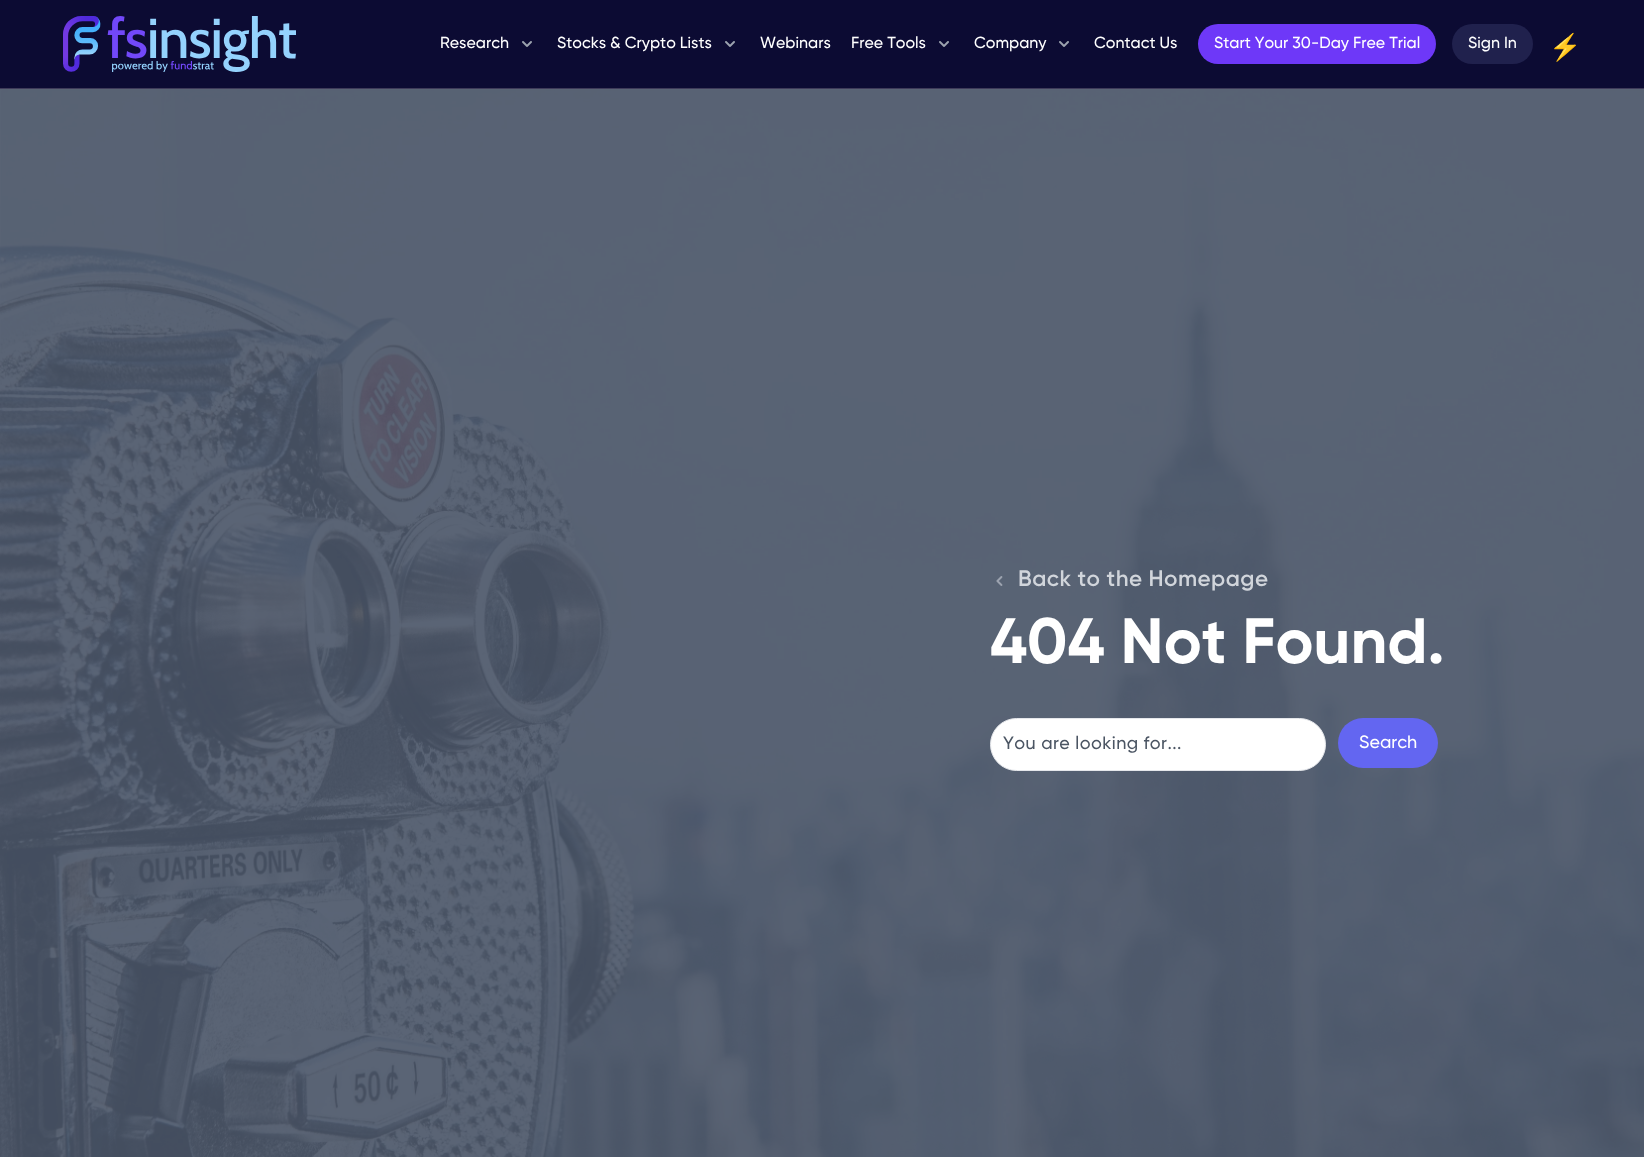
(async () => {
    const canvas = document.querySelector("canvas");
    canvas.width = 1644;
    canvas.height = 1157;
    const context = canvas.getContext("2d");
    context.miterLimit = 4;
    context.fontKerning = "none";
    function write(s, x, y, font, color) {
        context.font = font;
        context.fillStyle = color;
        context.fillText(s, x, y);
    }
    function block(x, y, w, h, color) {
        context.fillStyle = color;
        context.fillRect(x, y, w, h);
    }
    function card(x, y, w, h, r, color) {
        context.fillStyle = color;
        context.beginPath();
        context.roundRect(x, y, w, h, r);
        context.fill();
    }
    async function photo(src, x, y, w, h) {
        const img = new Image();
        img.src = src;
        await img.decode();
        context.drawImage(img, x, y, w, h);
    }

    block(0, 0, 1644, 1157, "rgb(62, 59, 90)");
    block(0, 0, 1644, 88, "rgb(12, 11, 51)");
    await photo("media/1.png", 63, 16, 233, 56);
    write("Research", 440, 48, "500 16px Gilroy", "rgb(255, 255, 255)");
    await photo("media/2.png", 522, 41, 10, 6);
    write("Stocks & Crypto Lists", 557, 48, "500 16px Gilroy", "rgb(255, 255, 255)");
    await photo("media/2.png", 725, 41, 10, 6);
    write("Webinars", 760, 48, "500 16px Gilroy", "rgb(255, 255, 255)");
    write("Free Tools", 851, 48, "500 16px Gilroy", "rgb(255, 255, 255)");
    await photo("media/2.png", 939, 41, 10, 6);
    write("Company", 974, 48, "500 16px Gilroy", "rgb(255, 255, 255)");
    await photo("media/2.png", 1059, 41, 10, 6);
    write("Contact Us", 1094, 48, "500 16px Gilroy", "rgb(255, 255, 255)");
    card(1198, 24, 238, 40, 20, "rgb(110, 56, 248)");
    write("Start Your 30-Day Free Trial", 1214, 48, "500 16px Gilroy", "rgb(255, 255, 255)");
    card(1452, 24, 81, 40, 20, "rgb(32, 33, 77)");
    write("Sign In", 1468, 48, "500 16px Gilroy", "rgb(255, 255, 255)");
    write("⚡", 1549, 56, "26px Noto Color Emoji", "rgb(31, 41, 55)");
    await photo("media/3.png", 0, 89, 1644, 1068);
    await photo("media/4.png", 996, 576, 7, 10);
    context.letterSpacing = "0.45px";
    write("Back to the Homepage", 1018, 586, "600 22.5px Gilroy", "rgb(209, 213, 219)");
    context.letterSpacing = "0px";
    write("404 Not Found.", 990, 663, "bold 64px Gilroy", "rgb(255, 255, 255)");
    context.beginPath();
    context.roundRect(990.5, 718.5, 335, 52, 26);
    context.fill();
    context.strokeStyle = "rgb(229, 231, 235)";
    context.stroke();
    context.letterSpacing = "0.45px";
    write("You are looking for...", 1003, 749, "500 18px Gilroy", "rgb(75, 85, 99)");
    card(1338, 718, 100, 50, 25, "rgb(99, 102, 241)");
    context.letterSpacing = "0px";
    write("Search", 1359, 748, "500 18px Gilroy", "rgb(255, 255, 255)");
})();
